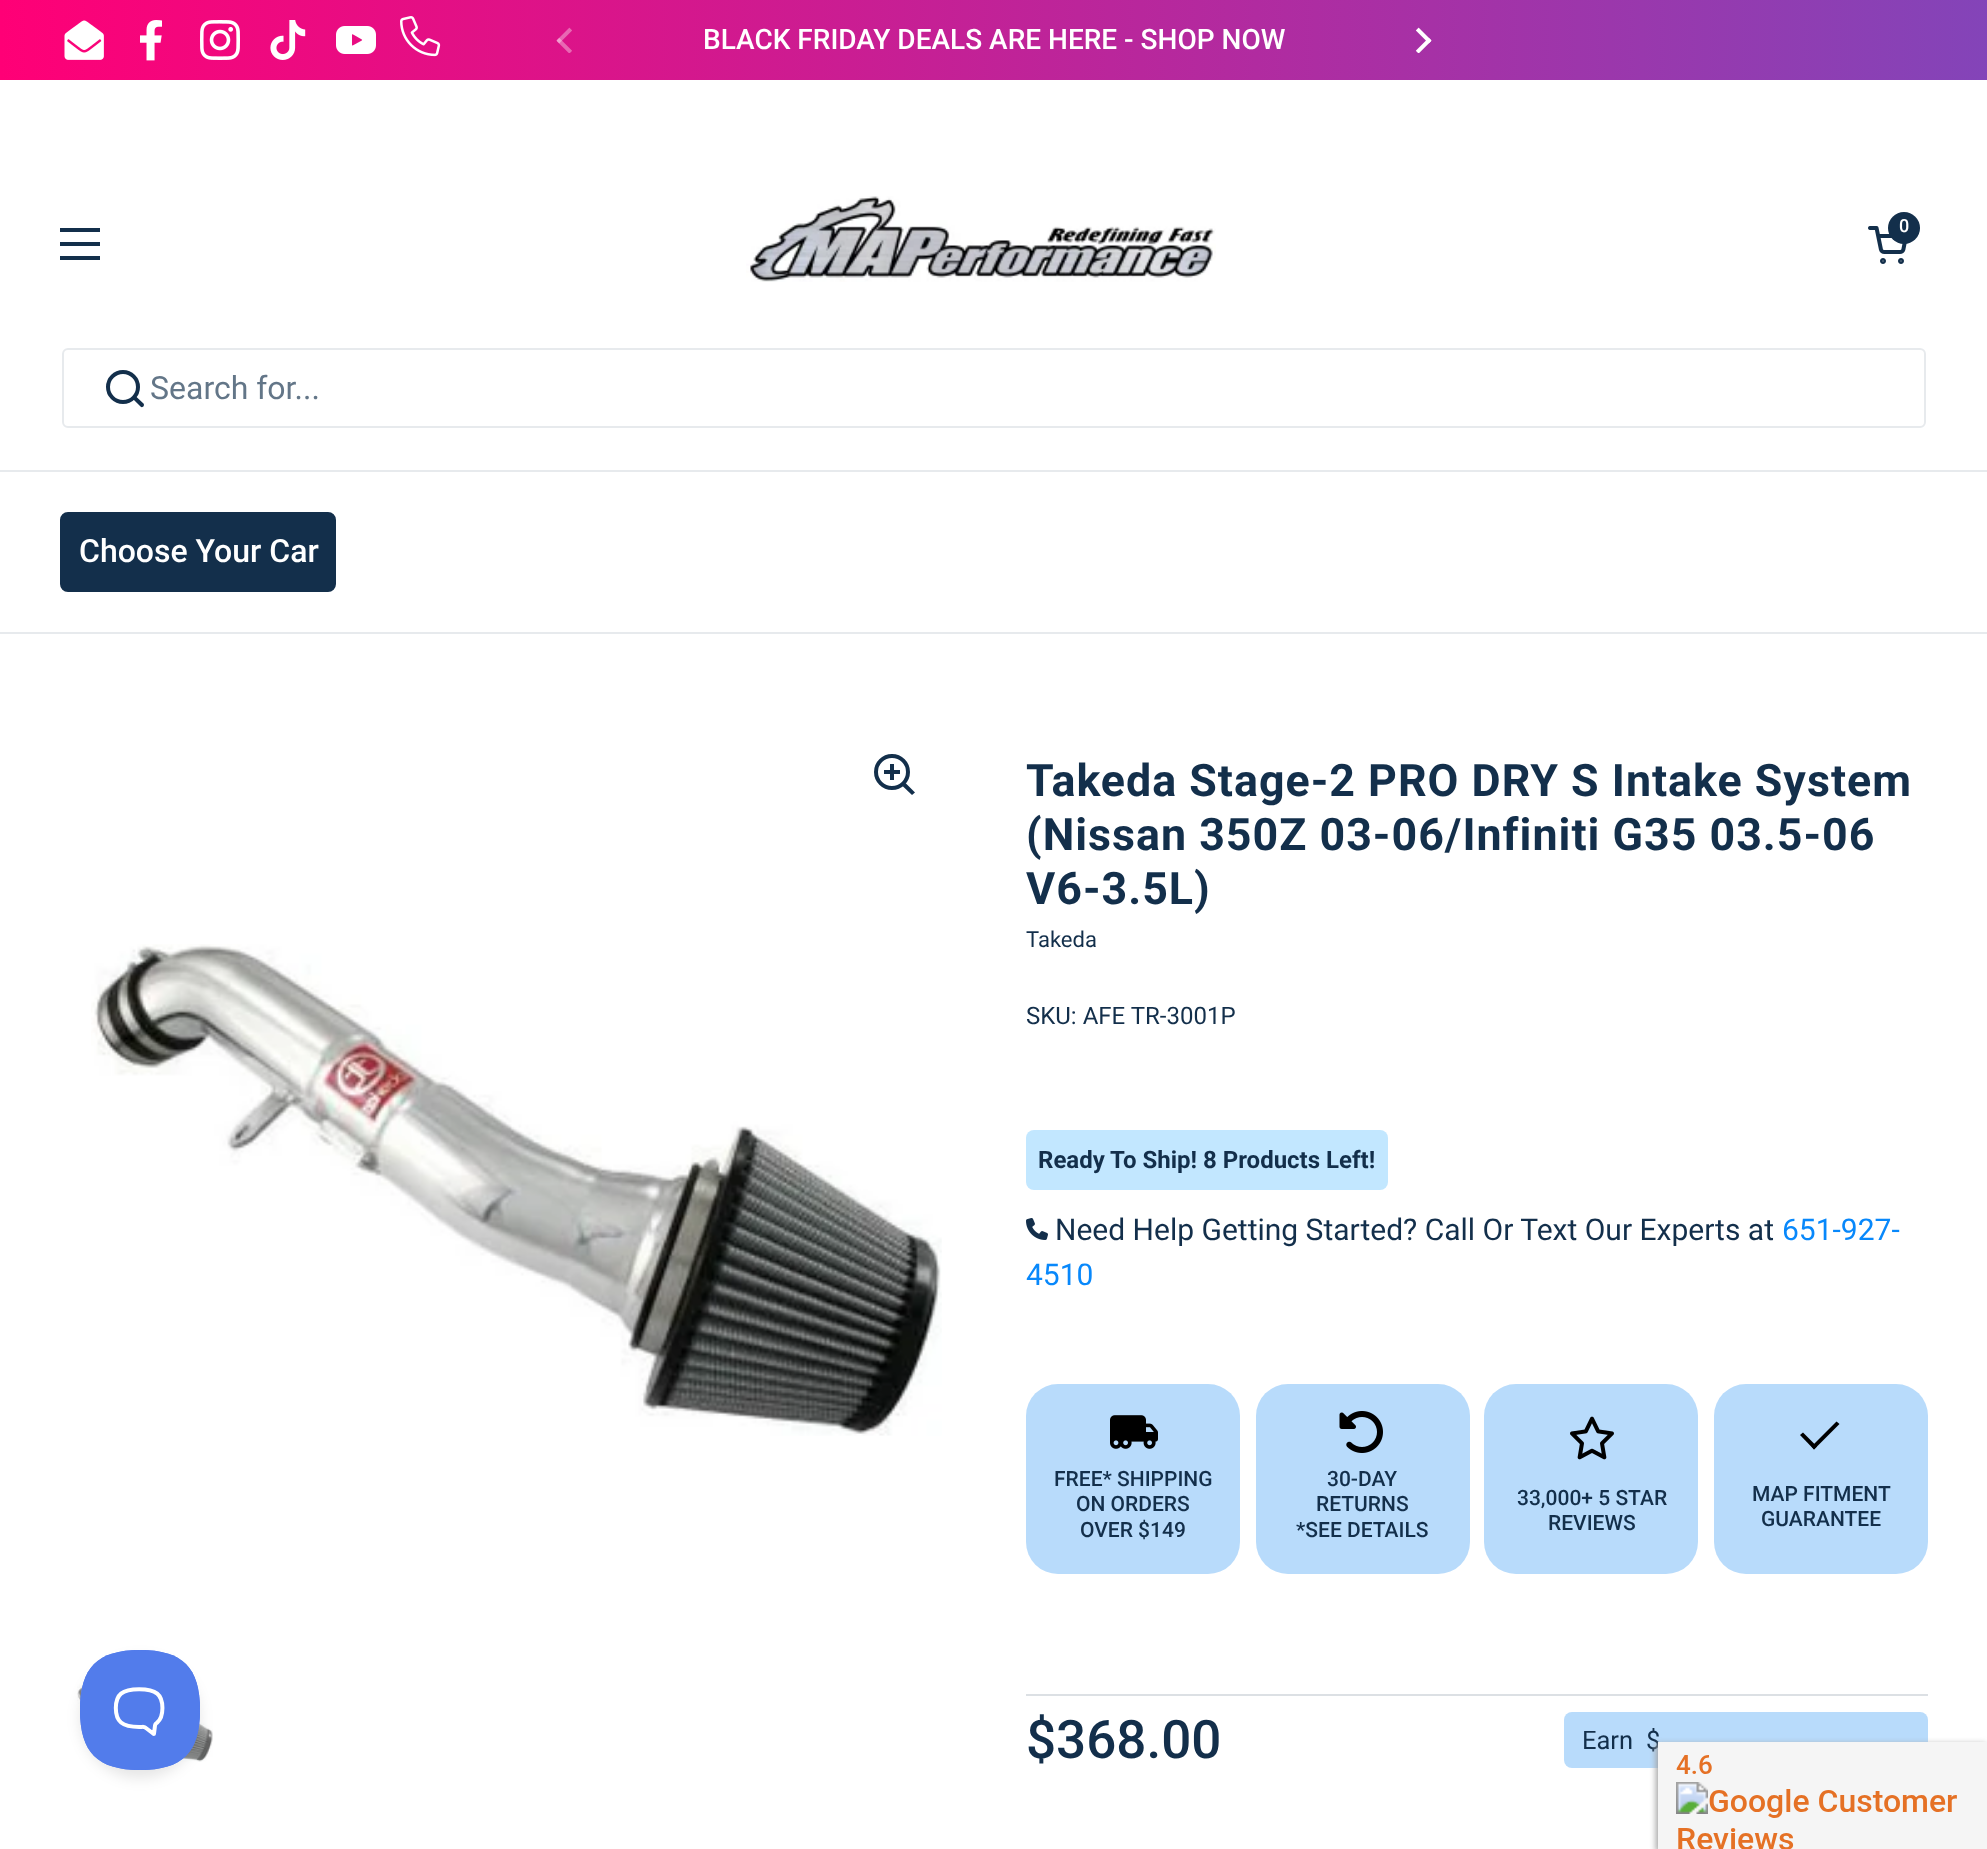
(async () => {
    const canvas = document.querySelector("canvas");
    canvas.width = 1987;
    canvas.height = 1849;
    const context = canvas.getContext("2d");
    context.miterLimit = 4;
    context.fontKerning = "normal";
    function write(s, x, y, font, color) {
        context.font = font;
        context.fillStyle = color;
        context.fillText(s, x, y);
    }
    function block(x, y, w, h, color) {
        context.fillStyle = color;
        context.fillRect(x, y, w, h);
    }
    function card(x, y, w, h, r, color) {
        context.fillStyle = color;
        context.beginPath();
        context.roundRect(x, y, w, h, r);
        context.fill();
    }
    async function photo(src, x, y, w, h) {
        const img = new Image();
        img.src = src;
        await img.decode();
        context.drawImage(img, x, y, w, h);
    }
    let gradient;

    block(0, 0, 1987, 1849, "rgb(255, 255, 255)");
    gradient = context.createLinearGradient(0, 160, 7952, 160);
    gradient.addColorStop(0, "rgb(255, 0, 118)");
    gradient.addColorStop(0.5, "rgb(8, 136, 251)");
    gradient.addColorStop(1, "rgb(89, 15, 183)");
    context.fillStyle = gradient;
    context.fillRect(0, 0, 1987, 80);
    await photo("media/1.png", 64, 20, 40, 40);
    await photo("media/2.png", 140, 20, 22, 41);
    await photo("media/3.png", 200, 20, 40, 40);
    await photo("media/4.png", 270, 20, 36, 40);
    await photo("media/5.png", 336, 26, 40, 28);
    await photo("media/6.png", 400, 16, 41, 41);
    await photo("media/7.png", 556, 27, 16, 26);
    write("BLACK FRIDAY DEALS ARE HERE - SHOP NOW", 703, 49, "500 28px Roboto", "rgb(255, 255, 255)");
    await photo("media/8.png", 1415, 27, 17, 26);
    await photo("media/9.png", 746, 196, 470, 86);
    await photo("media/10.png", 1868, 226, 39, 38);
    context.fillStyle = "rgb(19, 47, 75)";
    context.beginPath();
    context.arc(1904, 228, 16, 0, Math.PI * 2);
    context.fill();
    write("0", 1899, 232, "500 18px Roboto", "rgb(255, 255, 255)");
    block(60, 228, 40, 4, "rgb(19, 47, 75)");
    block(60, 242, 40, 4, "rgb(19, 47, 75)");
    block(60, 256, 40, 4, "rgb(19, 47, 75)");
    block(0, 470, 1987, 2, "rgb(231, 234, 237)");
    context.beginPath();
    context.roundRect(63, 349, 1862, 78, 5);
    context.strokeStyle = "rgb(231, 234, 237)";
    context.lineWidth = 2;
    context.stroke();
    context.beginPath();
    context.arc(123, 387, 15, 0, Math.PI * 2);
    context.strokeStyle = "rgb(19, 47, 75)";
    context.lineWidth = 4;
    context.stroke();
    context.fillStyle = "rgb(19, 47, 75)";
    context.beginPath();
    context.moveTo(136, 396.5);
    context.lineTo(135, 395);
    context.lineTo(132, 398);
    context.lineTo(133.5, 399.5);
    context.closePath();
    context.moveTo(140.5, 406.5);
    context.bezierCurveTo(142.5, 408.5, 145, 405.5, 143.5, 403.5);
    context.closePath();
    context.moveTo(133.5, 399.5);
    context.lineTo(140.5, 406.5);
    context.lineTo(143.5, 403.5);
    context.lineTo(136, 396.5);
    context.closePath();
    context.fill();
    write("Search for...", 150, 399, "32px Roboto", "rgb(99, 118, 136)");
    block(0, 632, 1987, 2, "rgb(231, 234, 237)");
    context.fillStyle = "rgb(19, 47, 75)";
    context.beginPath();
    context.roundRect(61, 513, 274, 78, 7);
    context.fill();
    context.lineWidth = 2;
    context.stroke();
    write("Choose Your Car", 79, 562, "500 32px Roboto", "rgb(255, 255, 255)");
    await photo("media/13.png", 77, 1680, 136, 82);
    context.fillStyle = "rgba(0, 0, 0, 0.1)";
    context.filter = "blur(7px)";
    context.beginPath();
    context.roundRect(80, 1658, 120, 120, 60);
    context.fill();
    context.filter = "none";
    await photo("media/11.png", 80, 1650, 120, 120);
    context.beginPath();
    context.arc(892, 772, 16, 0, Math.PI * 2);
    context.lineWidth = 4;
    context.stroke();
    block(890, 764, 4, 16, "rgb(19, 47, 75)");
    block(884, 770, 16, 4, "rgb(19, 47, 75)");
    context.beginPath();
    context.moveTo(902.5, 786);
    context.lineTo(905.5, 783);
    context.lineTo(915, 792.5);
    context.lineTo(912, 795);
    context.closePath();
    context.fill();
    await photo("media/12.png", 91, 944, 851, 492);
    context.letterSpacing = "1px";
    write("Takeda Stage-2 PRO DRY S Intake System", 1026, 796, "bold 44.75px Roboto", "rgb(19, 47, 75)");
    write("(Nissan 350Z 03-06/Infiniti G35 03.5-06", 1026, 850, "bold 44.75px Roboto", "rgb(19, 47, 75)");
    write("V6-3.5L)", 1026, 904, "bold 44.75px Roboto", "rgb(19, 47, 75)");
    context.letterSpacing = "0px";
    write("Takeda", 1026, 947, "22px Roboto", "rgb(19, 47, 75)");
    write("SKU: AFE TR-3001P", 1026, 1024, "24px Roboto", "rgb(19, 47, 75)");
    card(1026, 1130, 362, 60, 8, "rgb(194, 231, 255)");
    write("Ready To Ship! 8 Products Left!", 1038, 1168, "bold 24px Roboto", "rgb(19, 47, 75)");
    await photo("media/14.png", 1026, 1218, 22, 22);
    write("Need Help Getting Started? Call Or Text Our Experts at", 1055, 1240, "30px Roboto", "rgb(19, 47, 75)");
    write("651-927-", 1782, 1240, "30px Roboto", "rgb(8, 136, 251)");
    write("4510", 1026, 1285, "30px Roboto", "rgb(8, 136, 251)");
    card(1026, 1384, 214, 190, 32, "rgb(184, 219, 251)");
    await photo("media/15.png", 1110, 1415, 48, 34);
    write("FREE* SHIPPING", 1054, 1486, "500 21px Roboto", "rgb(19, 47, 75)");
    write("ON ORDERS", 1076, 1511, "500 21px Roboto", "rgb(19, 47, 75)");
    write("OVER $149", 1080, 1537, "500 21px Roboto", "rgb(19, 47, 75)");
    card(1256, 1384, 214, 190, 32, "rgb(184, 219, 251)");
    await photo("media/16.png", 1339, 1411, 44, 42);
    write("30-DAY", 1327, 1486, "500 21px Roboto", "rgb(19, 47, 75)");
    write("RETURNS", 1316, 1511, "500 21px Roboto", "rgb(19, 47, 75)");
    write("*SEE DETAILS", 1296, 1537, "500 21px Roboto", "rgb(19, 47, 75)");
    card(1484, 1384, 214, 190, 32, "rgb(184, 219, 251)");
    await photo("media/17.png", 1570, 1416, 44, 44);
    write("33,000+ 5 STAR", 1517, 1505, "500 21px Roboto", "rgb(19, 47, 75)");
    write("REVIEWS", 1548, 1530, "500 21px Roboto", "rgb(19, 47, 75)");
    card(1714, 1384, 214, 190, 32, "rgb(184, 219, 251)");
    context.fillStyle = "rgb(0, 0, 0)";
    context.beginPath();
    context.moveTo(1800, 1435);
    context.lineTo(1803, 1432.5);
    context.lineTo(1817, 1446.5);
    context.lineTo(1814, 1449.5);
    context.closePath();
    context.fill();
    context.beginPath();
    context.moveTo(1836.5, 1421.5);
    context.lineTo(1839.5, 1424);
    context.lineTo(1814, 1449.5);
    context.lineTo(1811.5, 1446.5);
    context.closePath();
    context.fill();
    write("MAP FITMENT", 1752, 1501, "500 21px Roboto", "rgb(19, 47, 75)");
    write("GUARANTEE", 1761, 1526, "500 21px Roboto", "rgb(19, 47, 75)");
    block(1026, 1694, 902, 2, "rgb(220, 224, 228)");
    write("$368.00", 1026, 1758, "500 53px Roboto", "rgb(19, 47, 75)");
    card(1564, 1712, 364, 56, 8, "rgb(184, 219, 251)");
    write("Earn", 1582, 1749, "25.5px Roboto", "rgb(19, 47, 75)");
    write("$", 1646, 1749, "25.5px Roboto", "rgb(19, 47, 75)");
    context.fillStyle = "rgb(162, 162, 162)";
    context.filter = "blur(3px)";
    context.beginPath();
    context.rect(1656, 1744, 330, 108);
    context.fill();
    context.filter = "none";
    await photo("media/18.png", 1658, 1742, 329, 107);
})();
